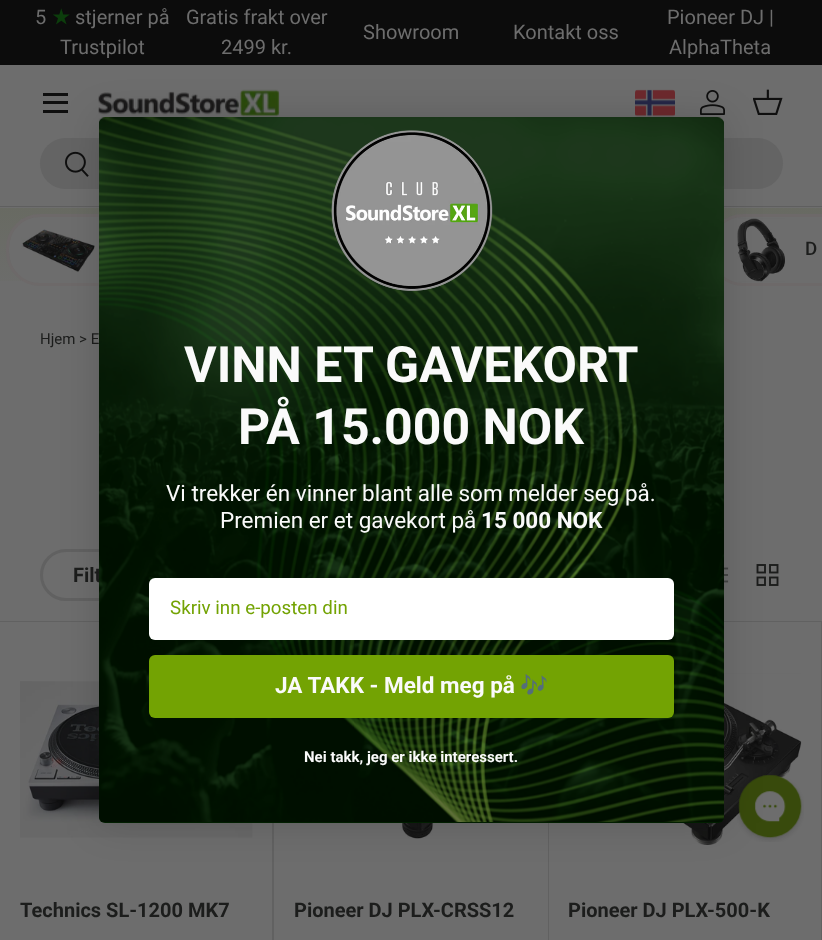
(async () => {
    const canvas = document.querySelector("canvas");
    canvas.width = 822;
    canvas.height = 940;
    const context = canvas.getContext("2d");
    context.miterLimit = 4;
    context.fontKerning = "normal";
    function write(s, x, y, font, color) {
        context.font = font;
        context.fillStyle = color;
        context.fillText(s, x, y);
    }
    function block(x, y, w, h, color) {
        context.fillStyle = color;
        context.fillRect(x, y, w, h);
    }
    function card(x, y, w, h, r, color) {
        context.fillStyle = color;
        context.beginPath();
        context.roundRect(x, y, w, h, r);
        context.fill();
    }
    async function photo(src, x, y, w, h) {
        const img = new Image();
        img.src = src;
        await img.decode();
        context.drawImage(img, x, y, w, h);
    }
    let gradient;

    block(0, 0, 822, 940, "rgb(109, 109, 109)");
    block(0, 0, 822, 65, "rgb(12, 12, 12)");
    write("5", 35, 24, "20px Roboto", "rgb(109, 109, 109)");
    write("★", 52, 24, "bold 20px DejaVu Sans", "rgb(12, 61, 12)");
    write("stjerner på", 75, 24, "20px Roboto", "rgb(109, 109, 109)");
    write("Trustpilot", 60, 54, "20px Roboto", "rgb(109, 109, 109)");
    write("Gratis frakt over", 186, 24, "20px Roboto", "rgb(109, 109, 109)");
    write("2499 kr.", 221, 54, "20px Roboto", "rgb(109, 109, 109)");
    write("Showroom", 363, 39, "20px Roboto", "rgb(109, 109, 109)");
    write("Kontakt oss", 513, 39, "20px Roboto", "rgb(109, 109, 109)");
    write("Pioneer DJ |", 667, 24, "20px Roboto", "rgb(109, 109, 109)");
    write("AlphaTheta", 669, 54, "20px Roboto", "rgb(109, 109, 109)");
    block(0, 206, 822, 1, "rgb(95, 95, 95)");
    block(43, 93, 25, 3, "rgb(15, 15, 15)");
    block(43, 110, 25, 3, "rgb(15, 15, 15)");
    block(43, 101, 25, 3, "rgb(15, 15, 15)");
    await photo("media/1.png", 98, 89, 182, 28);
    await photo("media/2.png", 635, 89, 40, 28);
    await photo("media/3.png", 700, 90, 25, 25);
    await photo("media/4.png", 753, 89, 30, 26);
    card(40, 138, 743, 51, 25.5, "rgb(100, 100, 100)");
    await photo("media/5.png", 65, 151, 24, 26);
    gradient = context.createLinearGradient(411, 207, 411, 303);
    gradient.addColorStop(0, "rgb(104, 106, 98)");
    gradient.addColorStop(1, "rgb(109, 109, 109)");
    context.fillStyle = gradient;
    context.fillRect(0, 208, 822, 73);
    card(9, 216, 225, 68, 31, "rgb(109, 109, 109)");
    block(21, 219, 5, 62, "rgb(109, 109, 109)");
    await photo("media/6.png", 21, 229, 74, 43);
    context.beginPath();
    context.roundRect(7.5, 215.5, 227, 69, 32.5);
    context.strokeStyle = "rgb(109, 105, 105)";
    context.lineWidth = 3;
    context.stroke();
    context.beginPath();
    context.moveTo(742, 216);
    context.lineTo(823, 216);
    context.lineTo(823, 284);
    context.lineTo(742, 284);
    context.bezierCurveTo(725, 284, 711, 270, 711, 253);
    context.lineTo(711, 247);
    context.bezierCurveTo(711, 230, 725, 216, 742, 216);
    context.closePath();
    context.fill();
    block(724, 219, 4, 62, "rgb(109, 109, 109)");
    await photo("media/7.png", 737, 218, 48, 64);
    context.beginPath();
    context.roundRect(710.5, 215.5, 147, 69, 32.5);
    context.stroke();
    write("D", 805, 255, "500 18.75px Roboto", "rgb(28, 29, 28)");
    write("Hjem > E", 40, 344, "15px Roboto", "rgb(28, 29, 28)");
    context.beginPath();
    context.roundRect(41.5, 550.5, 258, 49, 24.5);
    context.strokeStyle = "rgb(97, 97, 97)";
    context.stroke();
    write("Filt", 73, 582, "bold 20px Roboto", "rgb(28, 29, 28)");
    await photo("media/8.png", 724, 567, 5, 16);
    await photo("media/9.png", 756, 564, 23, 22);
    block(0, 621, 822, 1, "rgb(97, 97, 97)");
    context.beginPath();
    context.moveTo(274, 622);
    context.lineTo(274, 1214);
    context.lineTo(272, 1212);
    context.lineTo(272, 622);
    context.closePath();
    context.fill();
    await photo("media/10.png", 20, 681, 233, 157);
    write("Technics SL-1200 MK7", 20, 917, "bold 20px Roboto", "rgb(28, 29, 28)");
    context.fillStyle = "rgb(97, 97, 97)";
    context.beginPath();
    context.moveTo(549, 622);
    context.lineTo(549, 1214);
    context.lineTo(548, 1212);
    context.lineTo(548, 622);
    context.closePath();
    context.fill();
    await photo("media/11.png", 304, 823, 218, 16);
    write("Pioneer DJ PLX-CRSS12", 294, 917, "bold 20px Roboto", "rgb(28, 29, 28)");
    context.fillStyle = "rgb(97, 97, 97)";
    context.beginPath();
    context.moveTo(822, 622);
    context.lineTo(822, 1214);
    context.lineTo(821, 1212);
    context.lineTo(821, 622);
    context.closePath();
    context.fill();
    await photo("media/12.png", 568, 673, 234, 172);
    write("Pioneer DJ PLX-500-K", 568, 917, "bold 20px Roboto", "rgb(28, 29, 28)");
    await photo("media/15.png", 737, 775, 67, 67);
    context.fillStyle = "rgba(0, 0, 0, 0.15)";
    context.filter = "blur(19px)";
    context.beginPath();
    context.roundRect(99, 118, 625, 705, 6);
    context.fill();
    context.filter = "none";
    card(99, 118, 625, 705, 6, "rgb(1, 30, 0)");
    await photo("media/13.png", 99, 117, 625, 705);
    await photo("media/14.png", 331, 130, 162, 161);
    write("VINN ET GAVEKORT", 184, 382, "bold 50px Roboto", "rgb(250, 250, 250)");
    write("PÅ 15.000 NOK", 238, 444, "bold 50px Roboto", "rgb(250, 250, 250)");
    write("Vi trekker én vinner blant alle som melder seg på.", 166, 501, "22.5px Roboto", "rgb(250, 250, 250)");
    write("Premien er et gavekort på", 220, 528, "22.5px Roboto", "rgb(250, 250, 250)");
    write("15 000 NOK", 481, 528, "bold 22.5px Roboto", "rgb(250, 250, 250)");
    card(149, 578, 525, 62, 6, "rgb(255, 255, 255)");
    write("Skriv inn e-posten din", 170, 614, "18.75px Roboto", "rgb(115, 163, 3)");
    card(149, 655, 525, 63, 6, "rgb(115, 163, 3)");
    write("JA TAKK - Meld meg på", 275, 693, "bold 22.5px Roboto", "rgb(250, 250, 250)");
    write("🎶", 520, 693, "bold 22.5px Noto Color Emoji", "rgb(250, 250, 250)");
    write("Nei takk, jeg er ikke interessert.", 304, 762, "bold 15px Roboto", "rgb(250, 250, 250)");
})();
